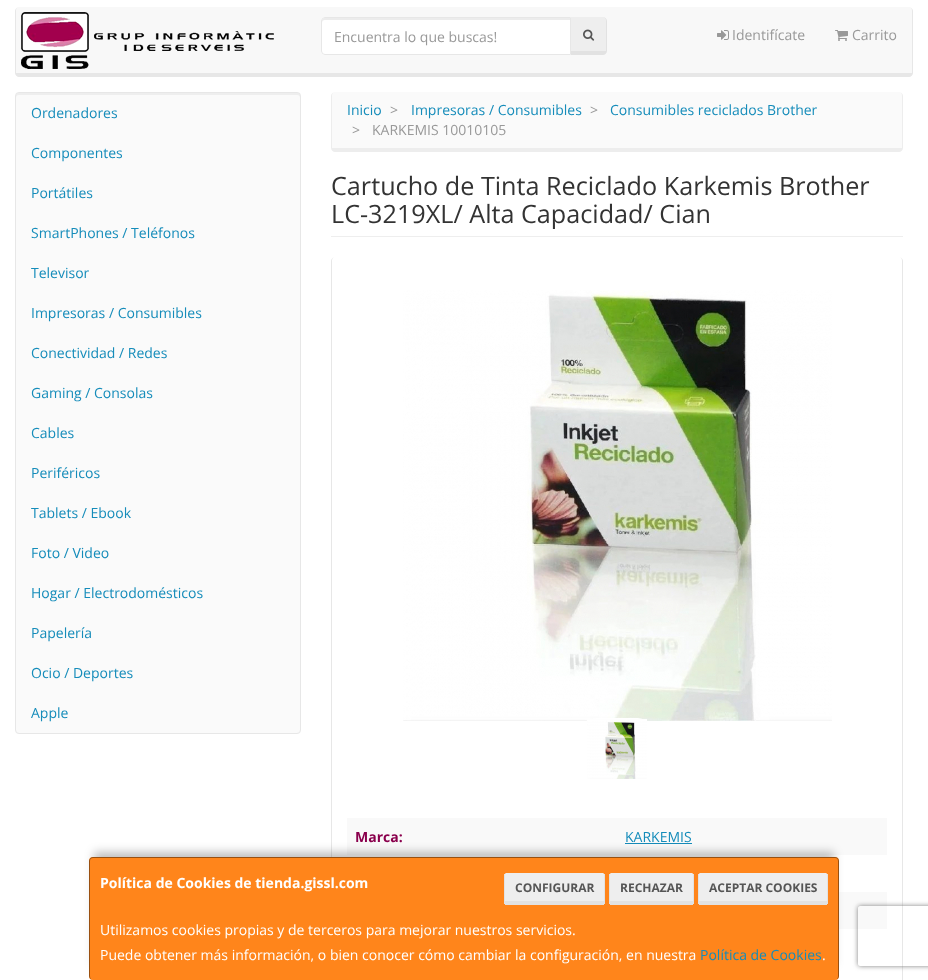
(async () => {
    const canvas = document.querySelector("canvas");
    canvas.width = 928;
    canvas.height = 980;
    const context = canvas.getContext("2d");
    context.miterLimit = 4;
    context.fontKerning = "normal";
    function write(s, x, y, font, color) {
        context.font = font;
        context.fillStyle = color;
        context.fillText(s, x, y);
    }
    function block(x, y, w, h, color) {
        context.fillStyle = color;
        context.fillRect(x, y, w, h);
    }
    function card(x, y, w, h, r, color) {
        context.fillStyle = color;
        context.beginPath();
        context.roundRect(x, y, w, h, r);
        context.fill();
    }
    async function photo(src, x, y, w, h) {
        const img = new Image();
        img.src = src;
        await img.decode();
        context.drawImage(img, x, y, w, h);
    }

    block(0, 0, 928, 980, "rgb(255, 255, 255)");
    context.fillStyle = "rgb(248, 248, 248)";
    context.beginPath();
    context.moveTo(19, 7);
    context.lineTo(909, 7);
    context.bezierCurveTo(911, 7, 912, 9, 912, 11);
    context.lineTo(912, 73);
    context.lineTo(16, 73);
    context.lineTo(16, 11);
    context.bezierCurveTo(16, 9, 17, 7, 19, 7);
    context.closePath();
    context.fill();
    context.fillStyle = "rgb(231, 231, 231)";
    context.beginPath();
    context.moveTo(19, 7);
    context.lineTo(909, 7);
    context.bezierCurveTo(911, 7, 913, 9, 913, 11);
    context.lineTo(913, 73);
    context.bezierCurveTo(913, 75, 911, 77, 909, 77);
    context.lineTo(19, 77);
    context.bezierCurveTo(17, 77, 15, 75, 15, 73);
    context.lineTo(15, 11);
    context.bezierCurveTo(15, 9, 17, 7, 19, 7);
    context.closePath();
    context.moveTo(19, 7);
    context.lineTo(909, 7);
    context.bezierCurveTo(911, 7, 912, 9, 912, 11);
    context.lineTo(912, 73);
    context.lineTo(16, 73);
    context.lineTo(16, 11);
    context.bezierCurveTo(16, 9, 17, 7, 19, 7);
    context.closePath();
    context.fill("evenodd");
    await photo("media/1.png", 21, 12, 253, 57);
    context.fillStyle = "rgb(238, 238, 238)";
    context.beginPath();
    context.moveTo(571, 17);
    context.lineTo(603, 17);
    context.bezierCurveTo(604.5, 17, 606, 19, 606, 21);
    context.lineTo(606, 51);
    context.lineTo(571, 51);
    context.closePath();
    context.fill();
    context.fillStyle = "rgb(226, 226, 226)";
    context.beginPath();
    context.moveTo(570, 17);
    context.lineTo(603, 17);
    context.bezierCurveTo(605, 17, 607, 19, 607, 21);
    context.lineTo(607, 51);
    context.bezierCurveTo(607, 53, 605, 55, 603, 55);
    context.lineTo(570, 55);
    context.closePath();
    context.moveTo(571, 17);
    context.lineTo(603, 17);
    context.bezierCurveTo(604.5, 17, 606, 19, 606, 21);
    context.lineTo(606, 51);
    context.lineTo(571, 51);
    context.closePath();
    context.fill("evenodd");
    context.fillStyle = "rgb(255, 255, 255)";
    context.beginPath();
    context.roundRect(321, 17, 250, 38, [4, 0, 0, 4]);
    context.fill();
    context.fillStyle = "rgb(236, 236, 236)";
    context.beginPath();
    context.moveTo(325, 20);
    context.lineTo(570, 20);
    context.lineTo(570, 18);
    context.lineTo(325, 18);
    context.bezierCurveTo(322, 18, 322, 21, 322, 23);
    context.bezierCurveTo(322, 21, 323, 20, 325, 20);
    context.closePath();
    context.fill();
    context.beginPath();
    context.roundRect(321.5, 17.5, 249, 37, [3.5, 0, 0, 3.5]);
    context.strokeStyle = "rgb(231, 231, 231)";
    context.stroke();
    write("Encuentra lo que buscas!", 334, 42, "14px Open Sans", "rgb(153, 153, 153)");
    await photo("media/2.png", 583, 29, 12, 12);
    await photo("media/3.png", 717, 30, 12, 10);
    write("Identifícate", 732, 40, "14px Open Sans", "rgb(153, 153, 153)");
    await photo("media/4.png", 835, 30, 13, 11);
    write("Carrito", 852, 40, "14px Open Sans", "rgb(153, 153, 153)");
    card(15, 92, 286, 642, 4, "rgb(250, 250, 250)");
    context.fillStyle = "rgb(238, 238, 238)";
    context.beginPath();
    context.moveTo(19, 95);
    context.lineTo(297, 95);
    context.bezierCurveTo(299, 95, 300, 96, 300, 98);
    context.lineTo(300, 96);
    context.bezierCurveTo(300, 94, 299, 93, 297, 93);
    context.lineTo(19, 93);
    context.bezierCurveTo(17, 93, 16, 94, 16, 96);
    context.lineTo(16, 98);
    context.bezierCurveTo(16, 96, 17, 95, 19, 95);
    context.closePath();
    context.fill();
    context.beginPath();
    context.roundRect(15.5, 92.5, 285, 641, 3.5);
    context.stroke();
    write("Ordenadores", 31, 118, "14px Open Sans", "rgb(21, 140, 186)");
    write("Componentes", 31, 158, "14px Open Sans", "rgb(21, 140, 186)");
    write("Portátiles", 31, 198, "14px Open Sans", "rgb(21, 140, 186)");
    write("SmartPhones / Teléfonos", 31, 238, "14px Open Sans", "rgb(21, 140, 186)");
    write("Televisor", 31, 278, "14px Open Sans", "rgb(21, 140, 186)");
    write("Impresoras / Consumibles", 31, 318, "14px Open Sans", "rgb(21, 140, 186)");
    write("Conectividad / Redes", 31, 358, "14px Open Sans", "rgb(21, 140, 186)");
    write("Gaming / Consolas", 31, 398, "14px Open Sans", "rgb(21, 140, 186)");
    write("Cables", 31, 438, "14px Open Sans", "rgb(21, 140, 186)");
    write("Periféricos", 31, 478, "14px Open Sans", "rgb(21, 140, 186)");
    write("Tablets / Ebook", 31, 518, "14px Open Sans", "rgb(21, 140, 186)");
    write("Foto / Video", 31, 558, "14px Open Sans", "rgb(21, 140, 186)");
    write("Hogar / Electrodomésticos", 31, 598, "14px Open Sans", "rgb(21, 140, 186)");
    write("Papelería", 31, 638, "14px Open Sans", "rgb(21, 140, 186)");
    write("Ocio / Deportes", 31, 678, "14px Open Sans", "rgb(21, 140, 186)");
    write("Apple", 31, 718, "14px Open Sans", "rgb(21, 140, 186)");
    context.fillStyle = "rgb(250, 250, 250)";
    context.beginPath();
    context.moveTo(335, 92);
    context.lineTo(899, 92);
    context.bezierCurveTo(901, 92, 902, 94, 902, 96);
    context.lineTo(902, 148);
    context.lineTo(332, 148);
    context.lineTo(332, 96);
    context.bezierCurveTo(332, 94, 333, 92, 335, 92);
    context.closePath();
    context.fill();
    context.fillStyle = "rgb(237, 237, 237)";
    context.beginPath();
    context.moveTo(335, 92);
    context.lineTo(899, 92);
    context.bezierCurveTo(901, 92, 903, 94, 903, 96);
    context.lineTo(903, 148);
    context.bezierCurveTo(903, 150, 901, 152, 899, 152);
    context.lineTo(335, 152);
    context.bezierCurveTo(333, 152, 331, 150, 331, 148);
    context.lineTo(331, 96);
    context.bezierCurveTo(331, 94, 333, 92, 335, 92);
    context.closePath();
    context.moveTo(335, 92);
    context.lineTo(899, 92);
    context.bezierCurveTo(901, 92, 902, 94, 902, 96);
    context.lineTo(902, 148);
    context.lineTo(332, 148);
    context.lineTo(332, 96);
    context.bezierCurveTo(332, 94, 333, 92, 335, 92);
    context.closePath();
    context.fill("evenodd");
    write("Inicio", 347, 115, "14px Open Sans", "rgb(21, 140, 186)");
    write(">", 390, 115, "14px Open Sans", "rgb(153, 153, 153)");
    write("Impresoras / Consumibles", 411, 115, "14px Open Sans", "rgb(21, 140, 186)");
    write(">", 590, 115, "14px Open Sans", "rgb(153, 153, 153)");
    write("Consumibles reciclados Brother", 610, 115, "14px Open Sans", "rgb(21, 140, 186)");
    write(">", 352, 135, "14px Open Sans", "rgb(153, 153, 153)");
    write("KARKEMIS 10010105", 372, 135, "14px Open Sans", "rgb(153, 153, 153)");
    block(331, 236, 572, 1, "rgb(238, 238, 238)");
    write("Cartucho de Tinta Reciclado Karkemis Brother", 331, 195, "25.2px Open Sans", "rgb(51, 51, 51)");
    write("LC-3219XL/ Alta Capacidad/ Cian", 331, 223, "25.2px Open Sans", "rgb(51, 51, 51)");
    context.fillStyle = "rgb(231, 231, 231)";
    context.beginPath();
    context.moveTo(335, 257);
    context.lineTo(899, 257);
    context.bezierCurveTo(901, 257, 903, 259, 903, 261);
    context.lineTo(903, 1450);
    context.bezierCurveTo(903, 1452, 901, 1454, 899, 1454);
    context.lineTo(335, 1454);
    context.bezierCurveTo(333, 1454, 331, 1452, 331, 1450);
    context.lineTo(331, 261);
    context.bezierCurveTo(331, 259, 333, 257, 335, 257);
    context.closePath();
    context.moveTo(335, 257);
    context.lineTo(899, 257);
    context.bezierCurveTo(901, 257, 902, 259, 902, 261);
    context.lineTo(902, 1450);
    context.lineTo(332, 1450);
    context.lineTo(332, 261);
    context.bezierCurveTo(332, 259, 333, 257, 335, 257);
    context.closePath();
    context.fill("evenodd");
    await photo("media/5.png", 403, 290, 429, 431);
    context.beginPath();
    context.roundRect(586.5, 718.5, 61, 59, 9.5);
    context.strokeStyle = "rgb(255, 255, 255)";
    context.stroke();
    await photo("media/6.png", 587, 719, 60, 60);
    block(347, 818, 540, 37, "rgb(249, 249, 249)");
    write("Marca:", 355, 842, "bold 14px Open Sans", "rgb(138, 0, 77)");
    write("KARKEMIS", 625, 842, "14px Open Sans", "rgb(21, 140, 186)");
    block(625, 843, 67, 1, "rgb(21, 140, 186)");
    block(839, 892, 48, 37, "rgb(249, 249, 249)");
    context.fillStyle = "rgba(0, 0, 0, 0.25)";
    context.filter = "blur(5px)";
    context.beginPath();
    context.rect(94, 852, 740, 113);
    context.fill();
    context.filter = "none";
    card(89, 857, 750, 123, 4, "rgb(255, 133, 27)");
    context.fillStyle = "rgba(0, 0, 0, 0.4)";
    context.beginPath();
    context.moveTo(93, 857);
    context.lineTo(835, 857);
    context.bezierCurveTo(837, 857, 839, 859, 839, 861);
    context.lineTo(839, 976);
    context.bezierCurveTo(839, 978, 837, 980, 835, 980);
    context.lineTo(93, 980);
    context.bezierCurveTo(91, 980, 89, 978, 89, 976);
    context.lineTo(89, 861);
    context.bezierCurveTo(89, 859, 91, 857, 93, 857);
    context.closePath();
    context.moveTo(93, 858);
    context.lineTo(835, 858);
    context.bezierCurveTo(837, 858, 838, 859, 838, 861);
    context.lineTo(838, 976);
    context.bezierCurveTo(838, 978, 837, 980, 835, 980);
    context.lineTo(93, 980);
    context.bezierCurveTo(91, 980, 90, 978, 90, 976);
    context.lineTo(90, 861);
    context.bezierCurveTo(90, 859, 91, 858, 93, 858);
    context.closePath();
    context.fill("evenodd");
    write("Política de Cookies de tienda.gissl.com", 100, 888, "bold 14px Open Sans", "rgb(255, 255, 255)");
    context.fillStyle = "rgb(238, 238, 238)";
    context.beginPath();
    context.moveTo(506, 873);
    context.lineTo(603, 873);
    context.bezierCurveTo(604, 873, 604, 874, 604, 875);
    context.lineTo(604, 901);
    context.lineTo(505, 901);
    context.lineTo(505, 875);
    context.bezierCurveTo(505, 874, 505, 873, 506, 873);
    context.closePath();
    context.fill();
    block(604, 874, 1, 30, "rgb(226, 226, 226)");
    block(505, 901, 99, 4, "rgb(226, 226, 226)");
    block(504, 874, 1, 30, "rgb(226, 226, 226)");
    write("CONFIGURAR", 515, 892, "bold 12px Open Sans", "rgb(85, 85, 85)");
    context.fillStyle = "rgb(238, 238, 238)";
    context.beginPath();
    context.moveTo(611, 873);
    context.lineTo(692, 873);
    context.bezierCurveTo(693, 873, 693, 874, 693, 875);
    context.lineTo(693, 901);
    context.lineTo(610, 901);
    context.lineTo(610, 875);
    context.bezierCurveTo(610, 874, 610, 873, 611, 873);
    context.closePath();
    context.fill();
    block(693, 874, 1, 30, "rgb(226, 226, 226)");
    block(610, 901, 83, 4, "rgb(226, 226, 226)");
    block(609, 874, 1, 30, "rgb(226, 226, 226)");
    write("RECHAZAR", 620, 892, "bold 12px Open Sans", "rgb(85, 85, 85)");
    context.fillStyle = "rgb(238, 238, 238)";
    context.beginPath();
    context.moveTo(700, 873);
    context.lineTo(826, 873);
    context.bezierCurveTo(827, 873, 827, 874, 827, 875);
    context.lineTo(827, 901);
    context.lineTo(699, 901);
    context.lineTo(699, 875);
    context.bezierCurveTo(699, 874, 699, 873, 700, 873);
    context.closePath();
    context.fill();
    block(827, 874, 1, 30, "rgb(226, 226, 226)");
    block(699, 901, 128, 4, "rgb(226, 226, 226)");
    block(698, 874, 1, 30, "rgb(226, 226, 226)");
    write("ACEPTAR COOKIES", 709, 892, "bold 12px Open Sans", "rgb(85, 85, 85)");
    write("Utilizamos cookies propias y de terceros para mejorar nuestros servicios.", 100, 935, "14px Open Sans", "rgb(255, 255, 255)");
    write("Puede obtener más información, o bien conocer cómo cambiar la configuración, en nuestra", 100, 960, "14px Open Sans", "rgb(255, 255, 255)");
    write("Política de Cookies", 700, 960, "14px Open Sans", "rgb(21, 140, 186)");
    write(".", 822, 960, "14px Open Sans", "rgb(255, 255, 255)");
    context.save();
    context.beginPath();
    context.moveTo(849, 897);
    context.lineTo(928, 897);
    context.lineTo(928, 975);
    context.lineTo(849, 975);
    context.closePath();
    context.moveTo(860, 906);
    context.lineTo(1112, 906);
    context.bezierCurveTo(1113, 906, 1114, 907, 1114, 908);
    context.lineTo(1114, 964);
    context.bezierCurveTo(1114, 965, 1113, 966, 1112, 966);
    context.lineTo(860, 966);
    context.bezierCurveTo(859, 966, 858, 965, 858, 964);
    context.lineTo(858, 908);
    context.bezierCurveTo(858, 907, 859, 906, 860, 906);
    context.closePath();
    context.clip("evenodd");
    context.fillStyle = "rgb(128, 128, 128)";
    context.filter = "blur(2.5px)";
    context.beginPath();
    context.roundRect(858, 906, 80, 60, 2);
    context.fill();
    context.filter = "none";
    context.restore();
})();
